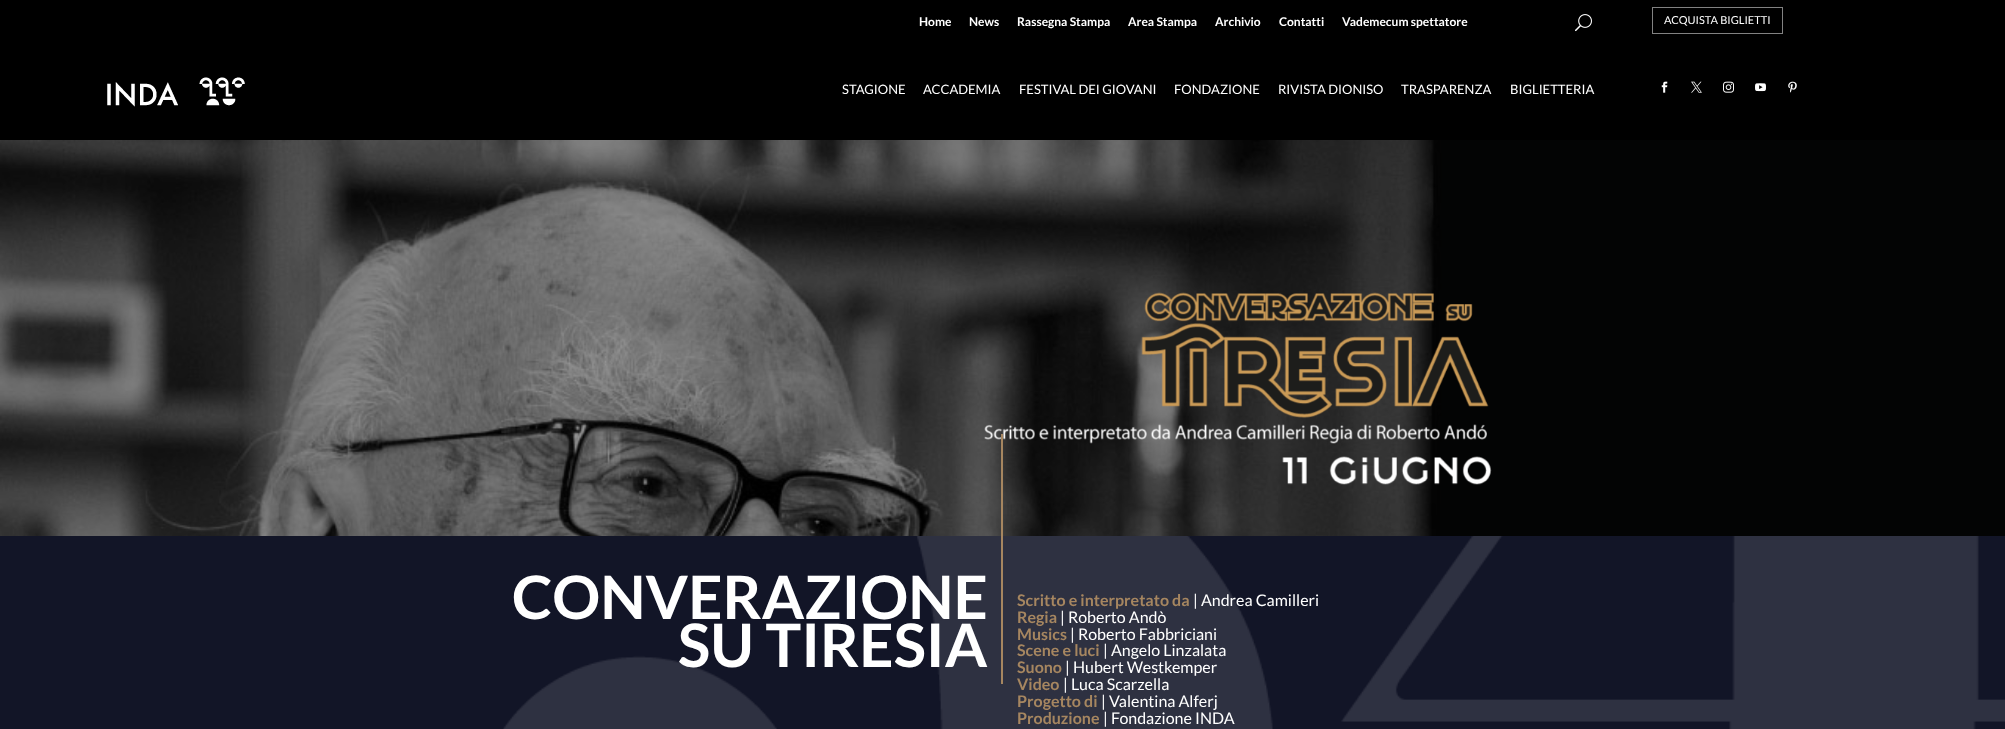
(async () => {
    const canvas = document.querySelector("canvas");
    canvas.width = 2005;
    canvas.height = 729;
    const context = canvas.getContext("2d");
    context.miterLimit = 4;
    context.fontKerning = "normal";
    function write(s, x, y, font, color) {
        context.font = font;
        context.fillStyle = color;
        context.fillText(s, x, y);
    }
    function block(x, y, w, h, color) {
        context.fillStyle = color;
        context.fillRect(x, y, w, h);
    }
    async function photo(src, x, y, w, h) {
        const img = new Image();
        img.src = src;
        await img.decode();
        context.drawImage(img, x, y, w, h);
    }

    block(0, 0, 2005, 729, "rgb(0, 0, 0)");
    write("Home", 919, 26, "bold 12px Lato", "rgb(255, 255, 255)");
    write("News", 969, 26, "bold 12px Lato", "rgb(255, 255, 255)");
    write("Rassegna Stampa", 1017, 26, "bold 12px Lato", "rgb(255, 255, 255)");
    write("Area Stampa", 1128, 26, "bold 12px Lato", "rgb(255, 255, 255)");
    write("Archivio", 1215, 26, "bold 12px Lato", "rgb(255, 255, 255)");
    write("Contatti", 1279, 26, "bold 12px Lato", "rgb(255, 255, 255)");
    write("Vademecum spettatore", 1342, 26, "bold 12px Lato", "rgb(255, 255, 255)");
    await photo("media/1.png", 1575, 14, 17, 18);
    context.strokeStyle = "rgb(130, 130, 130)";
    context.strokeRect(1652.5, 7.5, 130, 26);
    write("ACQUISTA BIGLIETTI", 1664, 24, "11px Lato", "rgb(255, 255, 255)");
    await photo("media/2.png", 107, 77, 138, 30);
    write("STAGIONE", 842, 94, "13px Lato", "rgb(255, 255, 255)");
    write("ACCADEMIA", 923, 94, "13px Lato", "rgb(255, 255, 255)");
    write("FESTIVAL DEI GIOVANI", 1019, 94, "13px Lato", "rgb(255, 255, 255)");
    write("FONDAZIONE", 1174, 94, "13px Lato", "rgb(255, 255, 255)");
    write("RIVISTA DIONISO", 1278, 94, "13px Lato", "rgb(255, 255, 255)");
    write("TRASPARENZA", 1401, 94, "13px Lato", "rgb(255, 255, 255)");
    write("BIGLIETTERIA", 1510, 94, "13px Lato", "rgb(255, 255, 255)");
    await photo("media/3.png", 1661, 81, 7, 12);
    await photo("media/4.png", 1691, 81, 11, 12);
    await photo("media/5.png", 1723, 81, 11, 12);
    await photo("media/6.png", 1755, 83, 11, 9);
    await photo("media/7.png", 1788, 81, 9, 12);
    await photo("media/8.png", 0, 140, 2005, 396);
    await photo("media/9.png", 984, 292, 508, 193);
    block(0, 536, 2005, 193, "rgb(18, 21, 39)");
    await photo("media/10.png", 503, 536, 1502, 193);
    write("CONVERAZIONE", 512, 619, "bold 60px Lato", "rgb(255, 255, 255)");
    write("SU TIRESIA", 678, 667, "bold 60px Lato", "rgb(255, 255, 255)");
    block(1001, 434, 2, 250, "rgb(166, 134, 96)");
    write("Scritto e interpretato da", 1017, 606, "bold 16px Lato", "rgb(166, 134, 96)");
    write("| Andrea Camilleri", 1193, 606, "16px Lato", "rgb(255, 255, 255)");
    write("Regia", 1017, 623, "bold 16px Lato", "rgb(166, 134, 96)");
    write("| Roberto Andò", 1060, 623, "16px Lato", "rgb(255, 255, 255)");
    write("Musics", 1017, 640, "bold 16px Lato", "rgb(166, 134, 96)");
    write("| Roberto Fabbriciani", 1070, 640, "16px Lato", "rgb(255, 255, 255)");
    write("Scene e luci", 1017, 656, "bold 16px Lato", "rgb(166, 134, 96)");
    write("| Angelo Linzalata", 1103, 656, "16px Lato", "rgb(255, 255, 255)");
    write("Suono", 1017, 673, "bold 16px Lato", "rgb(166, 134, 96)");
    write("| Hubert Westkemper", 1065, 673, "16px Lato", "rgb(255, 255, 255)");
    write("Video", 1017, 690, "bold 16px Lato", "rgb(166, 134, 96)");
    write("| Luca Scarzella", 1063, 690, "16px Lato", "rgb(255, 255, 255)");
    write("Progetto di", 1017, 707, "bold 16px Lato", "rgb(166, 134, 96)");
    write("| Valentina Alferj", 1101, 707, "16px Lato", "rgb(255, 255, 255)");
    write("Produzione", 1017, 724, "bold 16px Lato", "rgb(166, 134, 96)");
    write("| Fondazione INDA", 1103, 724, "16px Lato", "rgb(255, 255, 255)");
})();
